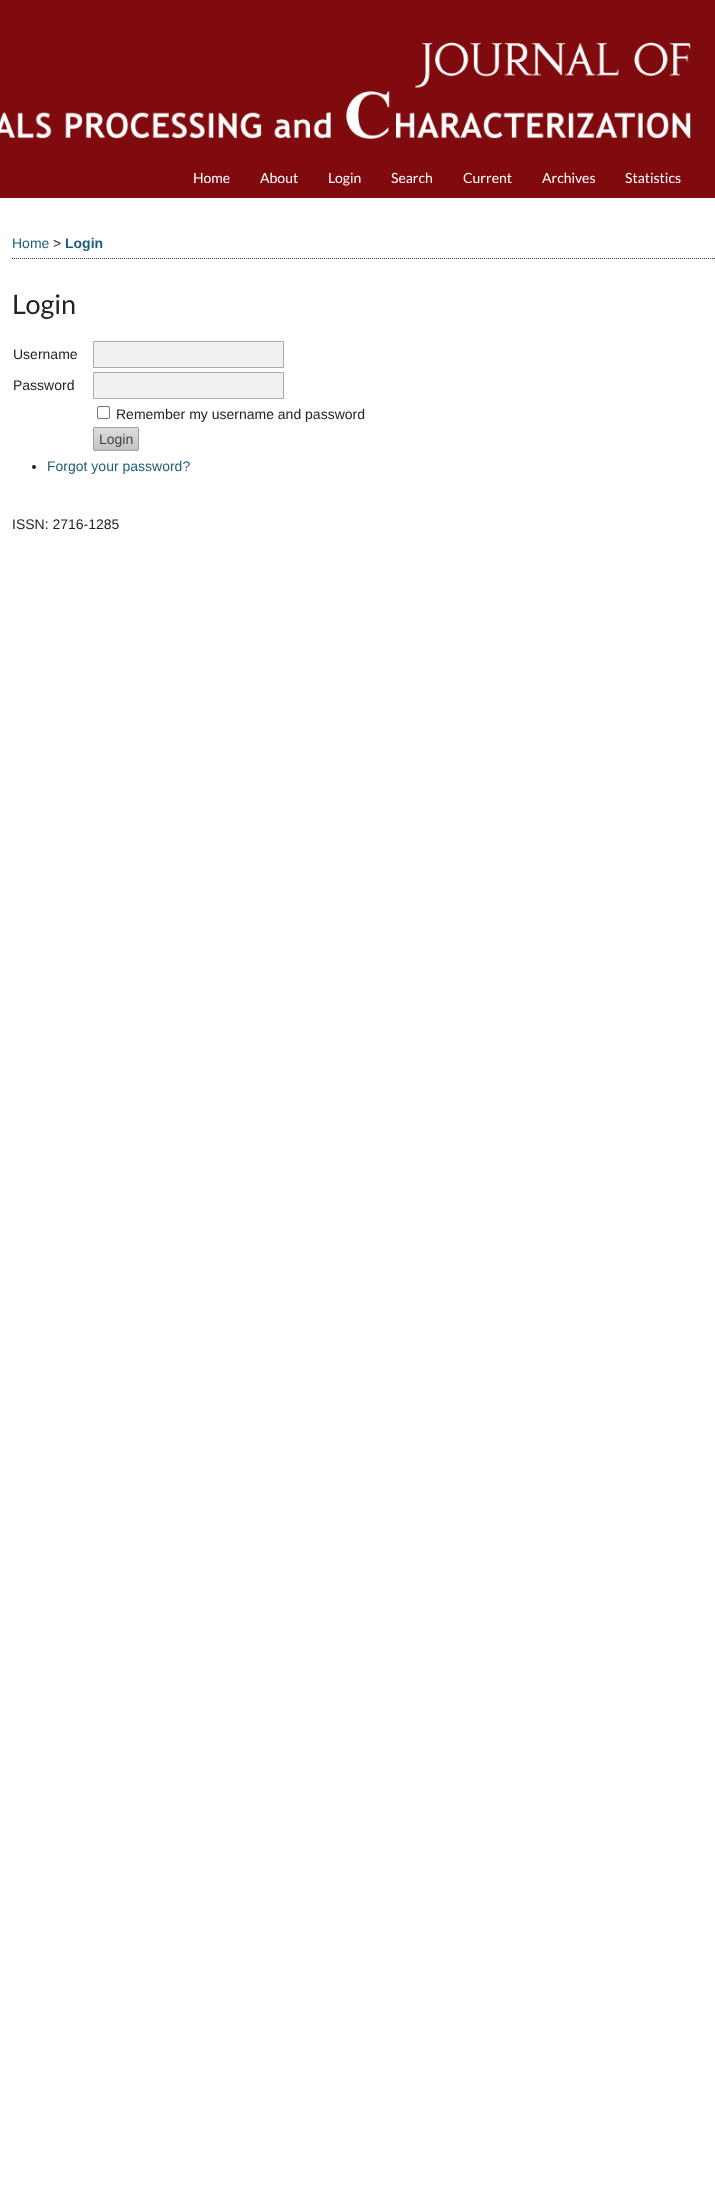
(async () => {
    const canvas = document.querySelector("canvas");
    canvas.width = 715;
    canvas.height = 2187;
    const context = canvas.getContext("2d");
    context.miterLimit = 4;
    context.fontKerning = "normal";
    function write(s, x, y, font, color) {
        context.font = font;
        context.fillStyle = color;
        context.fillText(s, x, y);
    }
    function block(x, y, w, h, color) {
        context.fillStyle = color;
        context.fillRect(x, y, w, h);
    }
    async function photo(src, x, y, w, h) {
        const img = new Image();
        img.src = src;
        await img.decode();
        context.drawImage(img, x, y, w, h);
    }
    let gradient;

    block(0, 0, 715, 2187, "rgb(255, 255, 255)");
    block(0, 0, 715, 198, "rgb(128, 11, 15)");
    await photo("media/1.png", 0, 42, 691, 97);
    write("Home", 193, 183, "14px Lato", "rgb(255, 255, 255)");
    write("About", 260, 183, "14px Lato", "rgb(255, 255, 255)");
    write("Login", 328, 183, "14px Lato", "rgb(255, 255, 255)");
    write("Search", 391, 183, "14px Lato", "rgb(255, 255, 255)");
    write("Current", 463, 183, "14px Lato", "rgb(255, 255, 255)");
    write("Archives", 542, 183, "14px Lato", "rgb(255, 255, 255)");
    write("Statistics", 625, 183, "14px Lato", "rgb(255, 255, 255)");
    context.beginPath();
    context.moveTo(12, 258.5);
    context.lineTo(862, 258.5);
    context.strokeStyle = "rgb(51, 51, 51)";
    context.setLineDash([1, 1]);
    context.stroke();
    write("Home", 12, 248, "14px Liberation Sans", "rgb(29, 94, 122)");
    write(">", 53, 248, "14px Liberation Sans", "rgb(34, 34, 34)");
    write("Login", 65, 248, "bold 14px Liberation Sans", "rgb(29, 94, 122)");
    write("Login", 12, 314, "27px Lato", "rgb(34, 34, 34)");
    write("Username", 13, 359, "14px Liberation Sans", "rgb(34, 34, 34)");
    context.fillStyle = "rgb(241, 241, 241)";
    context.beginPath();
    context.rect(93.5, 341.5, 190, 26);
    context.fill();
    context.strokeStyle = "rgb(170, 170, 170)";
    context.setLineDash([]);
    context.stroke();
    write("Password", 13, 390, "14px Liberation Sans", "rgb(34, 34, 34)");
    context.fillStyle = "rgb(241, 241, 241)";
    context.beginPath();
    context.rect(93.5, 372.5, 190, 26);
    context.fill();
    context.stroke();
    context.beginPath();
    context.roundRect(97.5, 406.5, 12, 12, 1.5);
    context.strokeStyle = "rgb(118, 118, 118)";
    context.stroke();
    write("Remember my username and password", 116, 419, "14px Liberation Sans", "rgb(34, 34, 34)");
    context.save();
    context.beginPath();
    context.roundRect(93, 427, 46, 24, 2);
    context.clip();
    gradient = context.createLinearGradient(116, 428, 116, 450);
    gradient.addColorStop(0, "rgb(221, 221, 221)");
    gradient.addColorStop(1, "rgb(196, 196, 196)");
    context.fillStyle = gradient;
    context.fillRect(93, 428, 46, 22);
    context.restore();
    context.beginPath();
    context.roundRect(93.5, 427.5, 45, 23, 1.5);
    context.strokeStyle = "rgb(157, 157, 157)";
    context.stroke();
    write("Login", 99, 444, "14px Liberation Sans", "rgb(68, 68, 68)");
    context.fillStyle = "rgb(34, 34, 34)";
    context.beginPath();
    context.arc(34, 467, 2, 0, Math.PI * 2);
    context.fill();
    write("Forgot your password?", 47, 471, "14px Liberation Sans", "rgb(29, 94, 122)");
    write("ISSN: 2716-1285", 12, 529, "14px Liberation Sans", "rgb(34, 34, 34)");
})();
